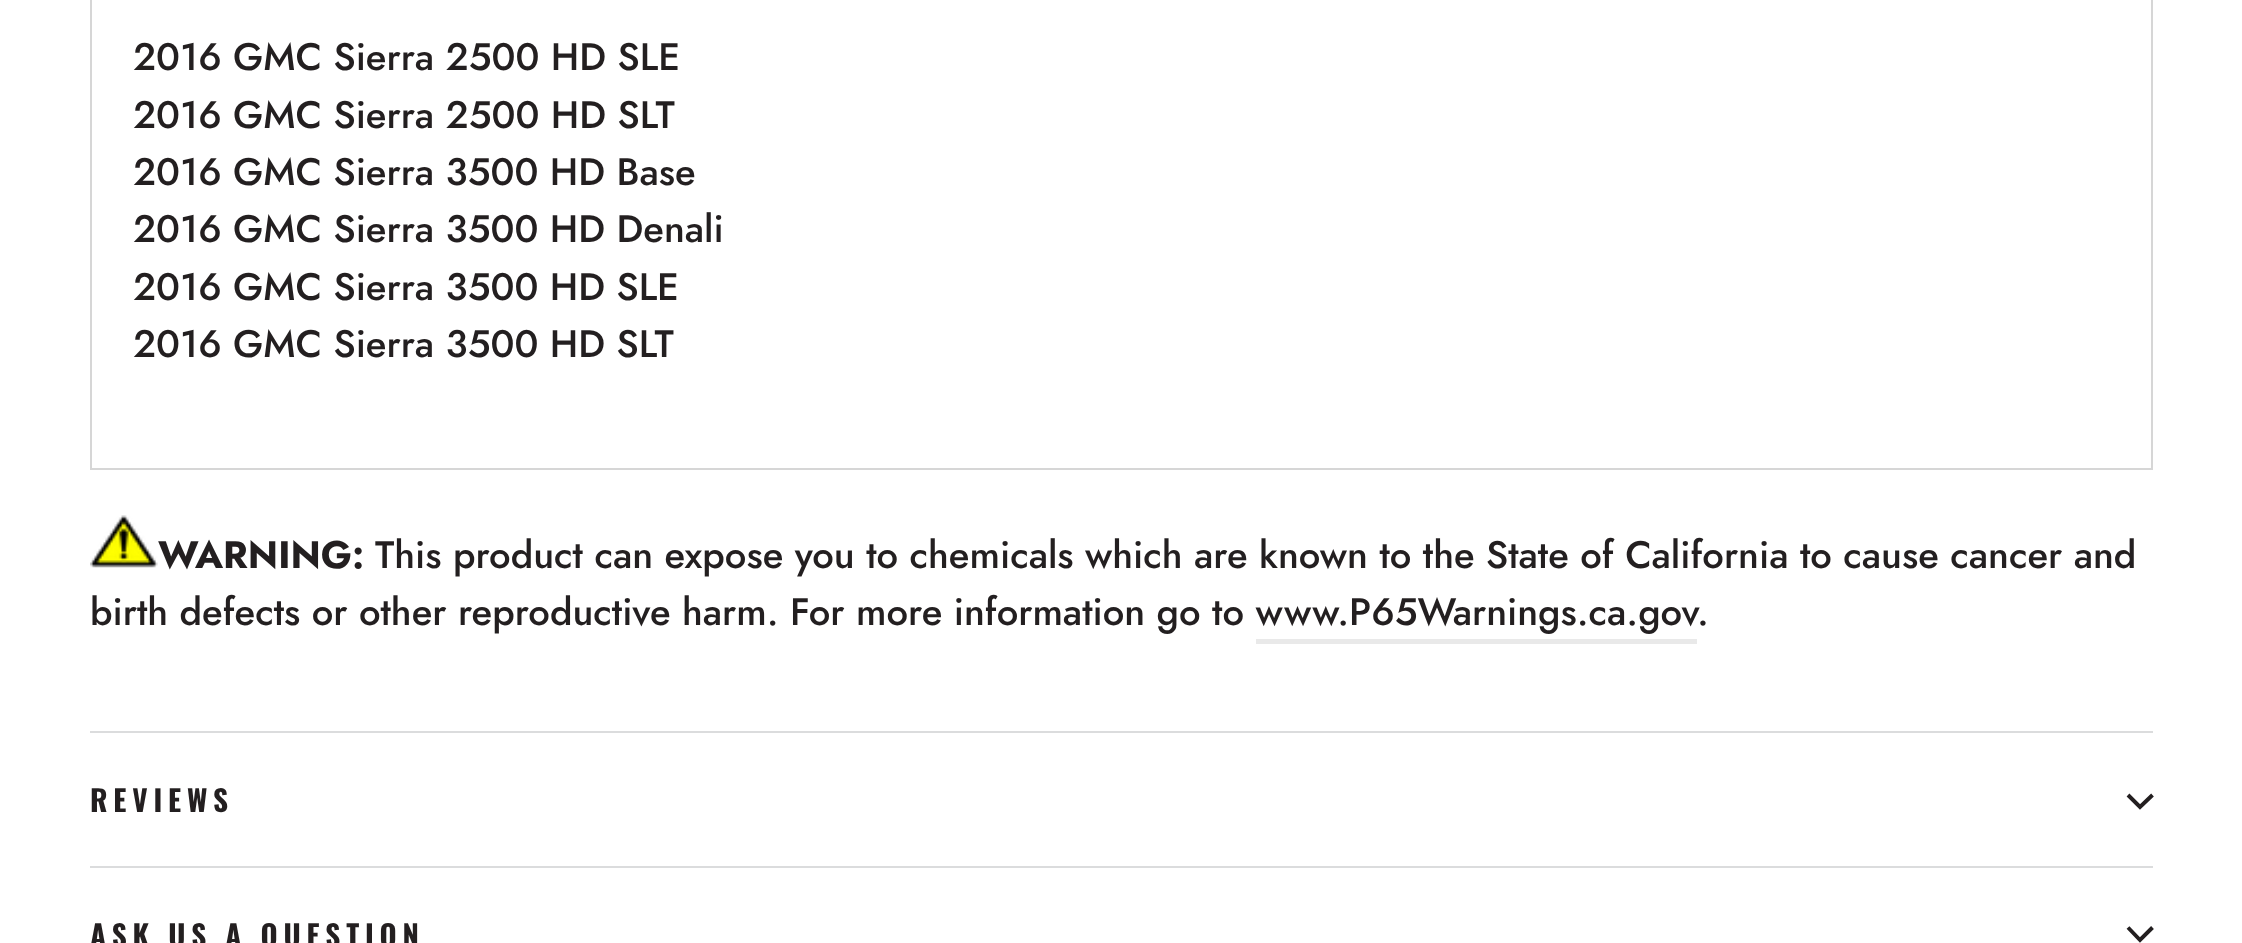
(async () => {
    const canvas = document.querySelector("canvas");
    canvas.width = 2242;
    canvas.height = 943;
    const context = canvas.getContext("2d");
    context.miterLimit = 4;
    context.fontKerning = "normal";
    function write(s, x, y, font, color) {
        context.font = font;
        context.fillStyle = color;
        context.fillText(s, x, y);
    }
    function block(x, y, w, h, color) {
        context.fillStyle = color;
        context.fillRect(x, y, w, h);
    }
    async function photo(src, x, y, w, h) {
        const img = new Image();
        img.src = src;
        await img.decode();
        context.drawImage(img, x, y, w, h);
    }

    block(0, 0, 2242, 943, "rgb(255, 255, 255)");
    context.strokeStyle = "rgb(214, 214, 214)";
    context.lineWidth = 2;
    context.strokeRect(91, -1, 2061, 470);
    write("2016 GMC Sierra 2500 HD SLE", 133, 70, "500 38.25px Jost", "rgb(35, 31, 32)");
    write("2016 GMC Sierra 2500 HD SLT", 133, 128, "500 38.25px Jost", "rgb(35, 31, 32)");
    write("2016 GMC Sierra 3500 HD Base", 133, 185, "500 38.25px Jost", "rgb(35, 31, 32)");
    write("2016 GMC Sierra 3500 HD Denali", 133, 242, "500 38.25px Jost", "rgb(35, 31, 32)");
    write("2016 GMC Sierra 3500 HD SLE", 133, 300, "500 38.25px Jost", "rgb(35, 31, 32)");
    write("2016 GMC Sierra 3500 HD SLT", 133, 357, "500 38.25px Jost", "rgb(35, 31, 32)");
    await photo("media/1.png", 90, 515, 68, 53);
    write("WARNING:", 158, 568, "bold 38.25px Jost", "rgb(35, 31, 32)");
    write("This product can expose you to chemicals which are known to the State of California to cause cancer and", 375, 568, "500 38.25px Jost", "rgb(35, 31, 32)");
    write("birth defects or other reproductive harm. For more information go to www.P65Warnings.ca.gov", 90, 625, "500 38.25px Jost", "rgb(35, 31, 32)");
    write(".", 1697, 625, "500 38.25px Jost", "rgb(35, 31, 32)");
    block(1256, 639, 441, 5, "rgb(233, 233, 233)");
    block(90, 731, 2063, 2, "rgb(219, 220, 221)");
    context.letterSpacing = "5.8px";
    write("REVIEWS", 90, 812, "bold 29.25px Oswald", "rgb(35, 31, 32)");
    context.beginPath();
    context.moveTo(2128, 795);
    context.lineTo(2140, 807);
    context.lineTo(2152.5, 795);
    context.strokeStyle = "rgb(35, 31, 32)";
    context.lineWidth = 3.9;
    context.stroke();
    block(90, 866, 2063, 2, "rgb(219, 220, 221)");
    write("ASK US A QUESTION", 90, 947, "bold 29.25px Oswald", "rgb(35, 31, 32)");
    context.beginPath();
    context.moveTo(2128, 927.5);
    context.lineTo(2140, 940);
    context.lineTo(2152.5, 927.5);
    context.stroke();
})();
